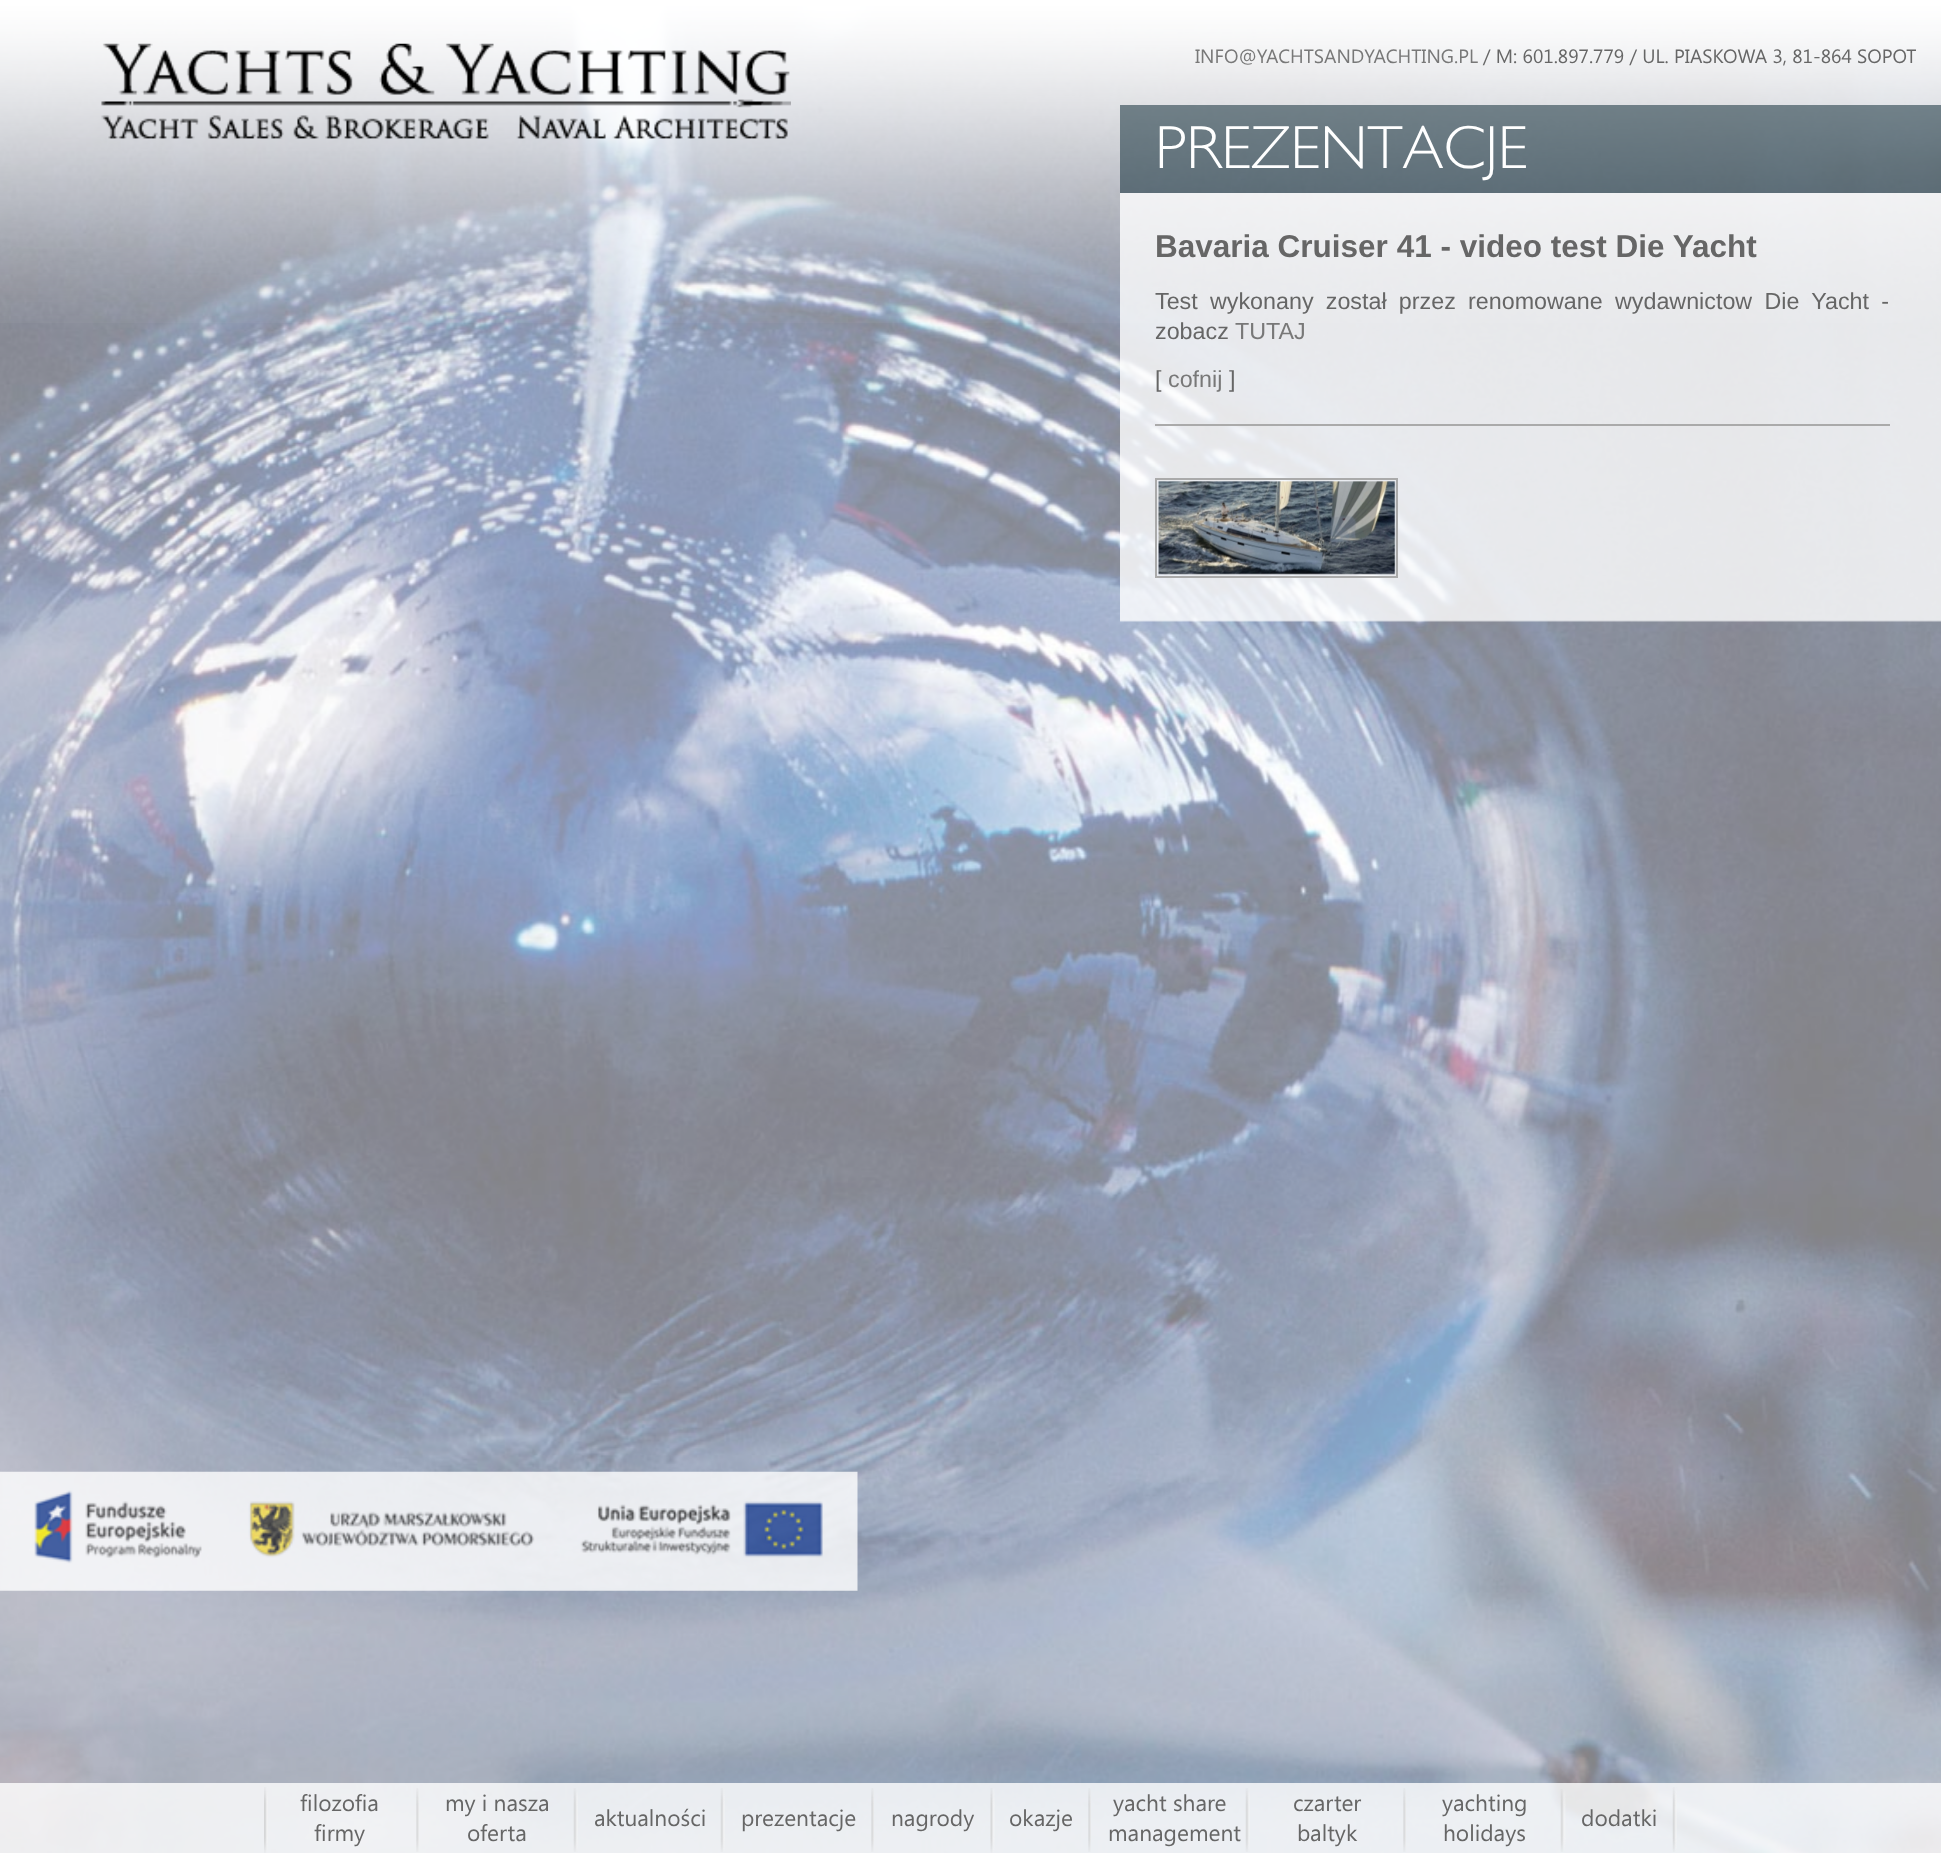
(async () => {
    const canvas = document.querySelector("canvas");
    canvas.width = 1941;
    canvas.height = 1853;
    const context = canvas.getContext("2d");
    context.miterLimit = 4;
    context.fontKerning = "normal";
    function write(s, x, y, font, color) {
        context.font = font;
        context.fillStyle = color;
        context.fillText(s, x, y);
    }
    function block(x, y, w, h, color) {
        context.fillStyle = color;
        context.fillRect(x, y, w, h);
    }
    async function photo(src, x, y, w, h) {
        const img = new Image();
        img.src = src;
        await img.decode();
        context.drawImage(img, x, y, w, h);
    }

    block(0, 0, 1941, 1853, "rgb(255, 255, 255)");
    await photo("media/1.png", 0, 6, 1941, 1847);
    await photo("media/2.png", 0, 0, 1941, 323);
    await photo("media/3.png", 101, 43, 690, 96);
    write("INFO@YACHTSANDYACHTING.PL", 1195, 63, "19.25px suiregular", "rgb(120, 120, 120)");
    write("/ M: 601.897.779 / UL. PIASKOWA 3, 81-864 SOPOT", 1483, 63, "19.25px suiregular", "rgb(102, 102, 102)");
    block(1120, 105, 821, 88, "rgba(0, 30, 42, 0.5)");
    write("PREZENTACJE", 1155, 168, "61.25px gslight", "rgb(255, 255, 255)");
    await photo("media/4.png", 1120, 193, 821, 429);
    write("Bavaria Cruiser 41 - video test Die Yacht", 1155, 257, "bold 31.5px Liberation Sans", "rgb(102, 102, 102)");
    context.wordSpacing = "5.75px";
    write("Test wykonany został przez renomowane wydawnictow Die Yacht -", 1155, 309, "23.3px Liberation Sans", "rgb(102, 102, 102)");
    context.wordSpacing = "0px";
    write("zobacz", 1155, 339, "23.3px Liberation Sans", "rgb(102, 102, 102)");
    write("TUTAJ", 1235, 339, "23.3px Liberation Sans", "rgb(120, 120, 120)");
    write("[", 1155, 387, "23.3px Liberation Sans", "rgb(102, 102, 102)");
    write("cofnij", 1168, 387, "23.3px Liberation Sans", "rgb(120, 120, 120)");
    write("]", 1229, 387, "23.3px Liberation Sans", "rgb(102, 102, 102)");
    block(1155, 424, 735, 2, "rgb(170, 170, 170)");
    context.strokeStyle = "rgb(170, 170, 170)";
    context.lineWidth = 2;
    context.strokeRect(1156, 479, 241, 98);
    await photo("media/5.png", 1158, 481, 238, 94);
    await photo("media/6.png", 0, 1471, 858, 120);
    block(0, 1783, 1941, 70, "rgba(255, 255, 255, 0.8)");
    await photo("media/7.png", 264, 1787, 4, 66);
    await photo("media/8.png", 416, 1788, 3, 64);
    write("filozofia", 300, 1811, "22.75px suiregular", "rgb(102, 102, 102)");
    write("firmy", 314, 1841, "22.75px suiregular", "rgb(102, 102, 102)");
    await photo("media/9.png", 573, 1788, 5, 64);
    write("my i nasza", 445, 1811, "22.75px suiregular", "rgb(102, 102, 102)");
    write("oferta", 467, 1841, "22.75px suiregular", "rgb(102, 102, 102)");
    await photo("media/10.png", 720, 1788, 5, 64);
    write("aktualności", 594, 1826, "22.75px suiregular", "rgb(102, 102, 102)");
    await photo("media/11.png", 871, 1788, 3, 64);
    write("prezentacje", 741, 1826, "22.75px suiregular", "rgb(102, 102, 102)");
    await photo("media/12.png", 990, 1788, 5, 65);
    write("nagrody", 891, 1826, "22.75px suiregular", "rgb(102, 102, 102)");
    await photo("media/13.png", 1088, 1788, 3, 64);
    write("okazje", 1009, 1826, "22.75px suiregular", "rgb(102, 102, 102)");
    await photo("media/14.png", 1245, 1788, 5, 64);
    write("yacht share", 1113, 1811, "22.75px suiregular", "rgb(102, 102, 102)");
    write("management", 1108, 1841, "22.75px suiregular", "rgb(102, 102, 102)");
    await photo("media/15.png", 1403, 1788, 3, 64);
    write("czarter", 1293, 1811, "22.75px suiregular", "rgb(102, 102, 102)");
    write("baltyk", 1297, 1841, "22.75px suiregular", "rgb(102, 102, 102)");
    await photo("media/16.png", 1560, 1789, 6, 63);
    write("yachting", 1442, 1811, "22.75px suiregular", "rgb(102, 102, 102)");
    write("holidays", 1443, 1841, "22.75px suiregular", "rgb(102, 102, 102)");
    await photo("media/17.png", 1672, 1787, 5, 65);
    write("dodatki", 1581, 1826, "22.75px suiregular", "rgb(102, 102, 102)");
})();
